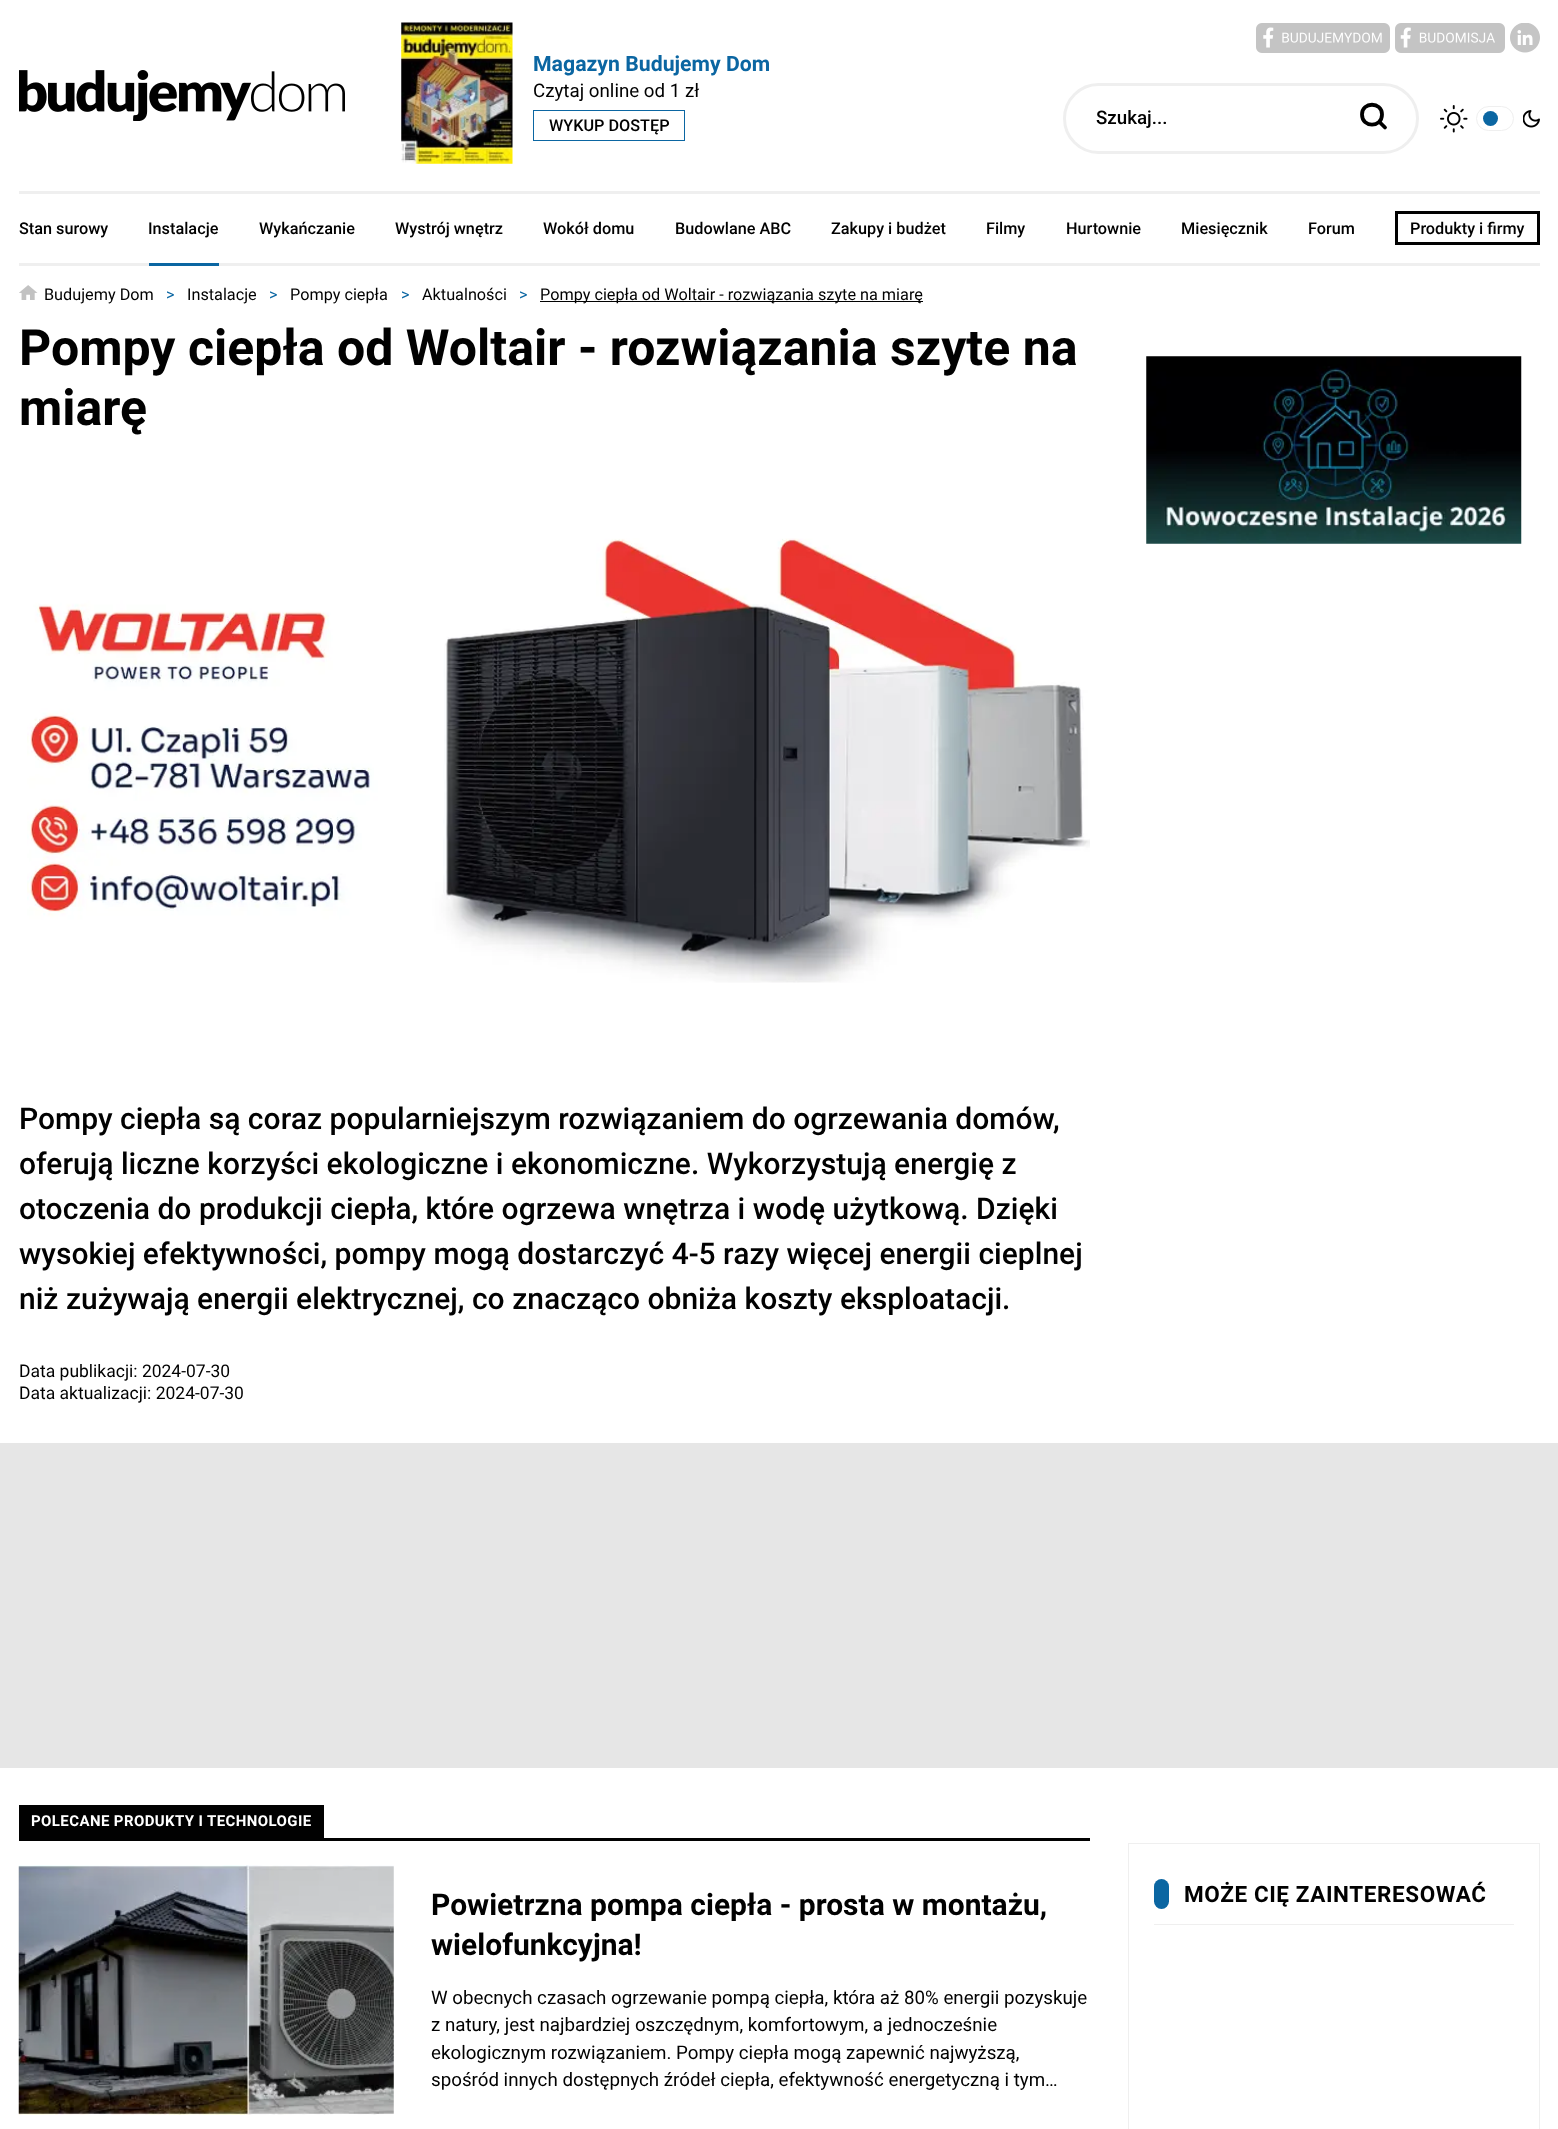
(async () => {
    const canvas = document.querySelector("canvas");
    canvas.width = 1558;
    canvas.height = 2129;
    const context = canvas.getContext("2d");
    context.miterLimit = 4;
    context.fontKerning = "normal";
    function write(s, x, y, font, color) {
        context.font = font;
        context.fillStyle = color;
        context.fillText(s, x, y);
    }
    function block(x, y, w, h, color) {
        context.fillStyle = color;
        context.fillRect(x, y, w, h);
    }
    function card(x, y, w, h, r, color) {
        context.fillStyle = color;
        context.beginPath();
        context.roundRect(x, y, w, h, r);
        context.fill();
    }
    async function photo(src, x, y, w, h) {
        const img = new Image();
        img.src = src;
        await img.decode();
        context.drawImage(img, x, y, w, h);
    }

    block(0, 0, 1558, 2129, "rgb(255, 255, 255)");
    await photo("media/1.png", 19, 70, 326, 51);
    await photo("media/2.png", 401, 22, 112, 142);
    write("Magazyn Budujemy Dom", 533, 71, "bold 21.25px Roboto", "rgb(11, 102, 162)");
    write("Czytaj online od 1 zł", 533, 97, "18.75px Roboto", "rgb(1, 1, 1)");
    context.strokeStyle = "rgb(11, 102, 162)";
    context.strokeRect(533.5, 110.5, 151, 30);
    write("WYKUP DOSTĘP", 549, 131, "500 16.25px Roboto", "rgb(1, 1, 1)");
    await photo("media/3.png", 1256, 23, 134, 30);
    await photo("media/4.png", 1395, 23, 110, 30);
    await photo("media/5.png", 1510, 23, 30, 30);
    context.beginPath();
    context.roundRect(1064.5, 84.5, 353, 68, 34);
    context.strokeStyle = "rgb(239, 239, 239)";
    context.lineWidth = 3;
    context.stroke();
    write("Szukaj...", 1096, 124, "500 18.75px Roboto", "rgb(1, 1, 1)");
    context.beginPath();
    context.moveTo(1382, 114.5);
    context.bezierCurveTo(1382, 128, 1362, 128, 1362, 114.5);
    context.bezierCurveTo(1362, 101.5, 1382, 101.5, 1382, 114.5);
    context.closePath();
    context.moveTo(1385, 127.5);
    context.lineTo(1379.5, 122);
    context.strokeStyle = "rgb(0, 0, 0)";
    context.lineWidth = 3.8;
    context.lineCap = "round";
    context.lineJoin = "round";
    context.stroke();
    await photo("media/6.png", 1440, 105, 28, 28);
    context.beginPath();
    context.roundRect(1476.5, 106.5, 37, 24, 12);
    context.strokeStyle = "rgb(239, 239, 239)";
    context.lineWidth = 1;
    context.lineJoin = "miter";
    context.stroke();
    context.fillStyle = "rgb(11, 102, 162)";
    context.beginPath();
    context.arc(1490.5, 118.5, 7.5, 0, Math.PI * 2);
    context.fill();
    await photo("media/7.png", 1523, 110, 17, 18);
    block(19, 191, 1521, 3, "rgb(239, 239, 239)");
    block(19, 263, 1521, 3, "rgb(239, 239, 239)");
    write("Stan surowy", 19, 234, "500 16.25px Roboto", "rgb(1, 1, 1)");
    write("Instalacje", 148, 234, "500 16.25px Roboto", "rgb(1, 1, 1)");
    block(149, 263, 70, 3, "rgb(11, 102, 162)");
    write("Wykańczanie", 259, 234, "500 16.25px Roboto", "rgb(1, 1, 1)");
    write("Wystrój wnętrz", 395, 234, "500 16.25px Roboto", "rgb(1, 1, 1)");
    write("Wokół domu", 543, 234, "500 16.25px Roboto", "rgb(1, 1, 1)");
    write("Budowlane ABC", 675, 234, "500 16.25px Roboto", "rgb(1, 1, 1)");
    write("Zakupy i budżet", 831, 234, "500 16.25px Roboto", "rgb(1, 1, 1)");
    write("Filmy", 986, 234, "500 16.25px Roboto", "rgb(1, 1, 1)");
    write("Hurtownie", 1066, 234, "500 16.25px Roboto", "rgb(1, 1, 1)");
    write("Miesięcznik", 1181, 234, "500 16.25px Roboto", "rgb(1, 1, 1)");
    write("Forum", 1308, 234, "500 16.25px Roboto", "rgb(1, 1, 1)");
    context.strokeStyle = "rgb(1, 1, 1)";
    context.lineWidth = 3;
    context.strokeRect(1396.5, 212.5, 142, 31);
    write("Produkty i firmy", 1410, 234, "500 16.25px Roboto", "rgb(1, 1, 1)");
    await photo("media/8.png", 19, 285, 19, 15);
    write("Budujemy Dom", 44, 300, "16.25px Roboto", "rgb(1, 1, 1)");
    write(">", 166, 300, "16.25px Roboto", "rgb(11, 102, 162)");
    write("Instalacje", 187, 300, "16.25px Roboto", "rgb(1, 1, 1)");
    write(">", 269, 300, "16.25px Roboto", "rgb(11, 102, 162)");
    write("Pompy ciepła", 290, 300, "16.25px Roboto", "rgb(1, 1, 1)");
    write(">", 401, 300, "16.25px Roboto", "rgb(11, 102, 162)");
    write("Aktualności", 422, 300, "16.25px Roboto", "rgb(1, 1, 1)");
    write(">", 519, 300, "16.25px Roboto", "rgb(11, 102, 162)");
    block(540, 301, 383, 1, "rgb(1, 1, 1)");
    write("Pompy ciepła od Woltair - rozwiązania szyte na miarę", 540, 300, "16.25px Roboto", "rgb(1, 1, 1)");
    write("Pompy ciepła od Woltair - rozwiązania szyte na", 19, 365, "bold 50px Roboto", "rgb(1, 1, 1)");
    write("miarę", 19, 425, "bold 50px Roboto", "rgb(1, 1, 1)");
    await photo("media/9.png", 27, 538, 1063, 445);
    write("Pompy ciepła są coraz popularniejszym rozwiązaniem do ogrzewania domów,", 19, 1129, "500 30px Roboto", "rgb(1, 1, 1)");
    write("oferują liczne korzyści ekologiczne i ekonomiczne. Wykorzystują energię z", 19, 1174, "500 30px Roboto", "rgb(1, 1, 1)");
    write("otoczenia do produkcji ciepła, które ogrzewa wnętrza i wodę użytkową. Dzięki", 19, 1219, "500 30px Roboto", "rgb(1, 1, 1)");
    write("wysokiej efektywności, pompy mogą dostarczyć 4-5 razy więcej energii cieplnej", 19, 1264, "500 30px Roboto", "rgb(1, 1, 1)");
    write("niż zużywają energii elektrycznej, co znacząco obniża koszty eksploatacji.", 19, 1309, "500 30px Roboto", "rgb(1, 1, 1)");
    write("Data publikacji: 2024-07-30", 19, 1377, "17.5px Roboto", "rgb(1, 1, 1)");
    write("Data aktualizacji: 2024-07-30", 19, 1399, "17.5px Roboto", "rgb(1, 1, 1)");
    await photo("media/10.png", 1146, 356, 376, 188);
    block(0, 1443, 1558, 325, "rgb(230, 230, 230)");
    block(19, 1838, 1071, 3, "rgb(1, 1, 1)");
    block(19, 1805, 305, 33, "rgb(1, 1, 1)");
    context.letterSpacing = "0.4px";
    write("POLECANE PRODUKTY I TECHNOLOGIE", 31, 1826, "bold 15px Roboto", "rgb(255, 255, 255)");
    await photo("media/11.png", 18, 1865, 376, 250);
    context.letterSpacing = "0px";
    write("Powietrzna pompa ciepła - prosta w montażu,", 431, 1915, "bold 30px Roboto", "rgb(1, 1, 1)");
    write("wielofunkcyjna!", 431, 1955, "bold 30px Roboto", "rgb(1, 1, 1)");
    write("W obecnych czasach ogrzewanie pompą ciepła, która aż 80% energii pozyskuje", 431, 2004, "18.75px Roboto", "rgb(1, 1, 1)");
    write("z natury, jest najbardziej oszczędnym, komfortowym, a jednocześnie", 431, 2031, "18.75px Roboto", "rgb(1, 1, 1)");
    write("ekologicznym rozwiązaniem. Pompy ciepła mogą zapewnić najwyższą,", 431, 2059, "18.75px Roboto", "rgb(1, 1, 1)");
    write("spośród innych dostępnych źródeł ciepła, efektywność energetyczną i tym…", 431, 2086, "18.75px Roboto", "rgb(1, 1, 1)");
    context.strokeStyle = "rgb(239, 239, 239)";
    context.lineWidth = 1;
    context.strokeRect(1128.5, 1843.5, 411, 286);
    block(1154, 1924, 360, 1, "rgb(239, 239, 239)");
    card(1154, 1879, 15, 30, 7.5, "rgb(11, 102, 162)");
    context.letterSpacing = "0.6px";
    write("MOŻE CIĘ ZAINTERESOWAĆ", 1184, 1902, "bold 22.5px Roboto", "rgb(1, 1, 1)");
})();
